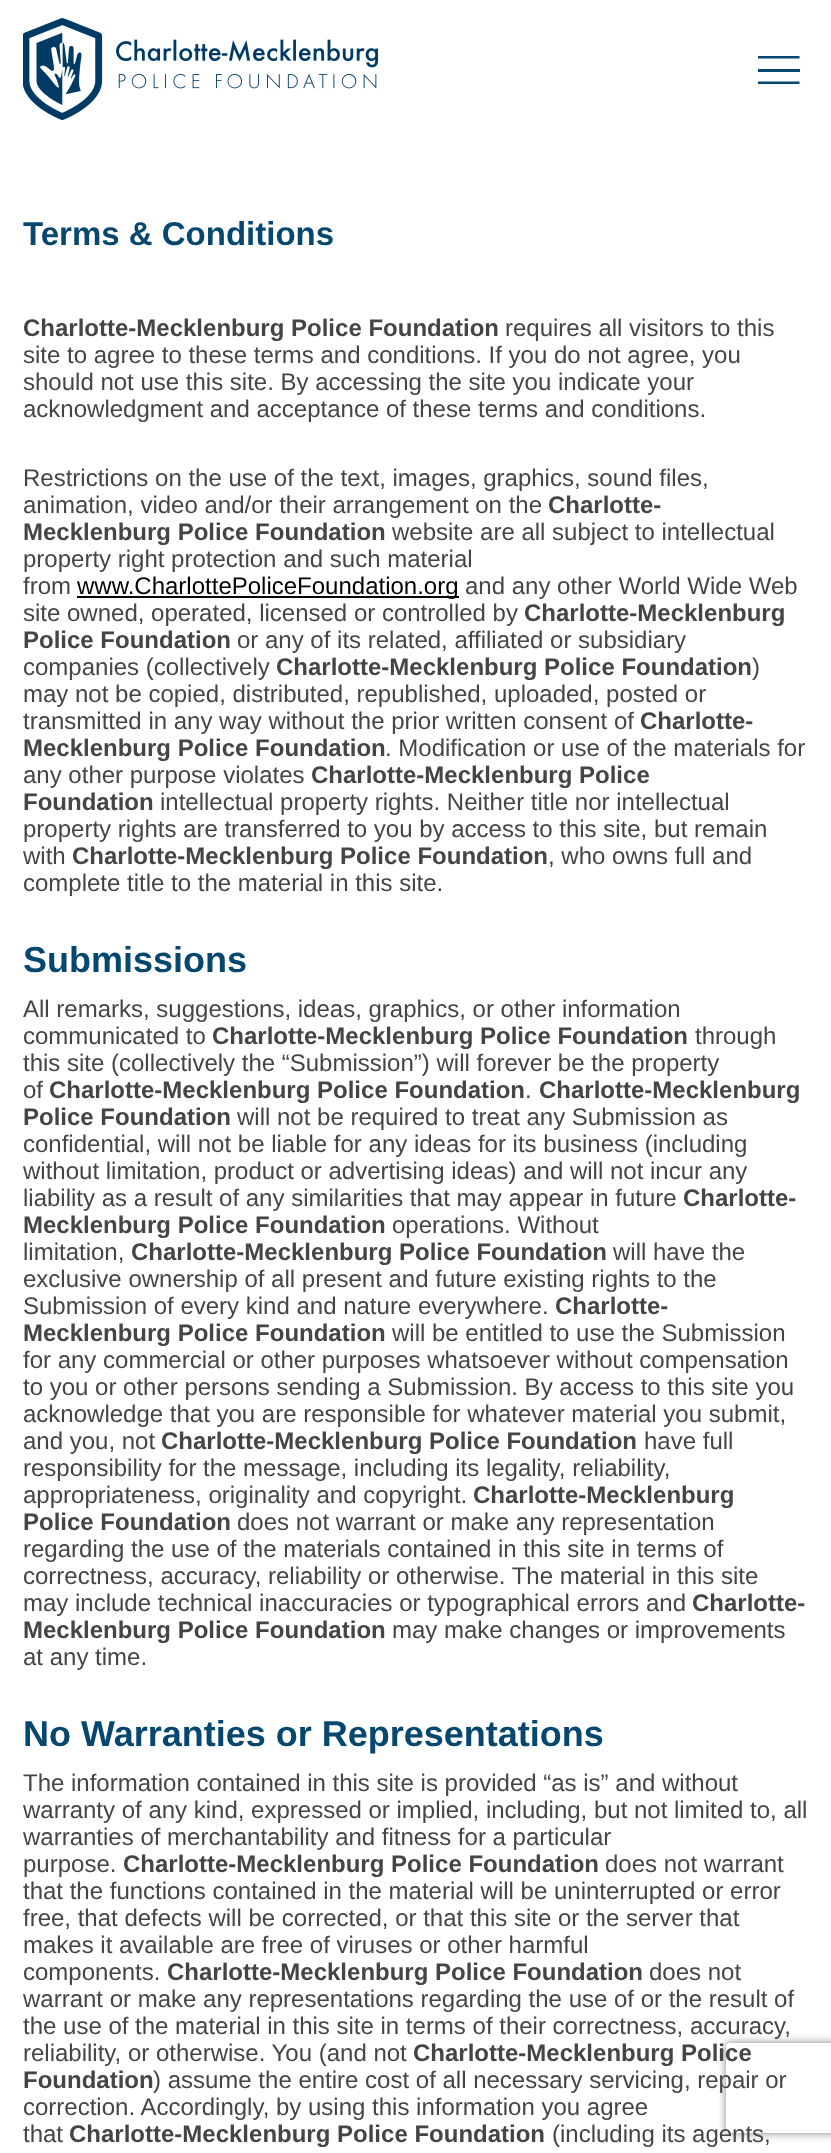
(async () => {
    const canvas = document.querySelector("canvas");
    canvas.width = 831;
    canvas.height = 2153;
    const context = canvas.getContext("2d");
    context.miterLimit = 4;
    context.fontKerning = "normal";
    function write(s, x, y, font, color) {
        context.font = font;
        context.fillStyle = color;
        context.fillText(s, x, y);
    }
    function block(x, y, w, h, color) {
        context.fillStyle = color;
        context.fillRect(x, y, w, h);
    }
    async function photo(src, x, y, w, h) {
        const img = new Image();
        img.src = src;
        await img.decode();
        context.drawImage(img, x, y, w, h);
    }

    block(0, 0, 831, 2153, "rgb(255, 255, 255)");
    await photo("media/1.png", 23, 18, 355, 102);
    context.save();
    context.beginPath();
    context.rect(758, 56, 42, 28);
    context.clip();
    context.beginPath();
    context.moveTo(757.5, 83);
    context.lineTo(799.5, 83);
    context.moveTo(757.5, 57);
    context.lineTo(799.5, 57);
    context.strokeStyle = "rgb(6, 71, 111)";
    context.lineWidth = 3;
    context.stroke();
    context.restore();
    block(758, 69, 42, 3, "rgb(6, 71, 111)");
    write("Terms & Conditions", 23, 245, "bold 33px Liberation Sans", "rgb(6, 71, 111)");
    write("Charlotte-Mecklenburg Police Foundation", 23, 336, "bold 24px Liberation Sans", "rgb(69, 69, 69)");
    write("requires all visitors to this", 505, 336, "24px Liberation Sans", "rgb(69, 69, 69)");
    write("site to agree to these terms and conditions. If you do not agree, you", 23, 363, "24px Liberation Sans", "rgb(69, 69, 69)");
    write("should not use this site. By accessing the site you indicate your", 23, 390, "24px Liberation Sans", "rgb(69, 69, 69)");
    write("acknowledgment and acceptance of these terms and conditions.", 23, 417, "24px Liberation Sans", "rgb(69, 69, 69)");
    write("Restrictions on the use of the text, images, graphics, sound files,", 23, 486, "24px Liberation Sans", "rgb(69, 69, 69)");
    write("animation, video and/or their arrangement on the", 23, 513, "24px Liberation Sans", "rgb(69, 69, 69)");
    write("Charlotte-", 548, 513, "bold 24px Liberation Sans", "rgb(69, 69, 69)");
    write("Mecklenburg Police Foundation", 23, 540, "bold 24px Liberation Sans", "rgb(69, 69, 69)");
    write("website are all subject to intellectual", 392, 540, "24px Liberation Sans", "rgb(69, 69, 69)");
    write("property right protection and such material", 23, 567, "24px Liberation Sans", "rgb(69, 69, 69)");
    write("from", 23, 594, "24px Liberation Sans", "rgb(69, 69, 69)");
    block(77, 596, 382, 2, "rgb(0, 0, 0)");
    write("www.CharlottePoliceFoundation.org", 77, 594, "24px Liberation Sans", "rgb(0, 0, 0)");
    write("and any other World Wide Web", 465, 594, "24px Liberation Sans", "rgb(69, 69, 69)");
    write("site owned, operated, licensed or controlled by", 23, 621, "24px Liberation Sans", "rgb(69, 69, 69)");
    write("Charlotte-Mecklenburg", 524, 621, "bold 24px Liberation Sans", "rgb(69, 69, 69)");
    write("Police Foundation", 23, 648, "bold 24px Liberation Sans", "rgb(69, 69, 69)");
    write("or any of its related, affiliated or subsidiary", 237, 648, "24px Liberation Sans", "rgb(69, 69, 69)");
    write("companies (collectively", 23, 675, "24px Liberation Sans", "rgb(69, 69, 69)");
    write("Charlotte-Mecklenburg Police Foundation", 276, 675, "bold 24px Liberation Sans", "rgb(69, 69, 69)");
    write(")", 752, 675, "24px Liberation Sans", "rgb(69, 69, 69)");
    write("may not be copied, distributed, republished, uploaded, posted or", 23, 702, "24px Liberation Sans", "rgb(69, 69, 69)");
    write("transmitted in any way without the prior written consent of", 23, 729, "24px Liberation Sans", "rgb(69, 69, 69)");
    write("Charlotte-", 640, 729, "bold 24px Liberation Sans", "rgb(69, 69, 69)");
    write("Mecklenburg Police Foundation", 23, 756, "bold 24px Liberation Sans", "rgb(69, 69, 69)");
    write(". Modification or use of the materials for", 385, 756, "24px Liberation Sans", "rgb(69, 69, 69)");
    write("any other purpose violates", 23, 783, "24px Liberation Sans", "rgb(69, 69, 69)");
    write("Charlotte-Mecklenburg Police", 311, 783, "bold 24px Liberation Sans", "rgb(69, 69, 69)");
    write("Foundation", 23, 810, "bold 24px Liberation Sans", "rgb(69, 69, 69)");
    write("intellectual property rights. Neither title nor intellectual", 160, 810, "24px Liberation Sans", "rgb(69, 69, 69)");
    write("property rights are transferred to you by access to this site, but remain", 23, 837, "24px Liberation Sans", "rgb(69, 69, 69)");
    write("with", 23, 864, "24px Liberation Sans", "rgb(69, 69, 69)");
    write("Charlotte-Mecklenburg Police Foundation", 72, 864, "bold 24px Liberation Sans", "rgb(69, 69, 69)");
    write(", who owns full and", 548, 864, "24px Liberation Sans", "rgb(69, 69, 69)");
    write("complete title to the material in this site.", 23, 891, "24px Liberation Sans", "rgb(69, 69, 69)");
    write("Submissions", 23, 972, "bold 36px Liberation Sans", "rgb(6, 71, 111)");
    write("All remarks, suggestions, ideas, graphics, or other information", 23, 1017, "24px Liberation Sans", "rgb(69, 69, 69)");
    write("communicated to", 23, 1044, "24px Liberation Sans", "rgb(69, 69, 69)");
    write("Charlotte-Mecklenburg Police Foundation", 212, 1044, "bold 24px Liberation Sans", "rgb(69, 69, 69)");
    write("through", 695, 1044, "24px Liberation Sans", "rgb(69, 69, 69)");
    write("this site (collectively the “Submission”) will forever be the property", 23, 1071, "24px Liberation Sans", "rgb(69, 69, 69)");
    write("of", 23, 1098, "24px Liberation Sans", "rgb(69, 69, 69)");
    write("Charlotte-Mecklenburg Police Foundation", 49, 1098, "bold 24px Liberation Sans", "rgb(69, 69, 69)");
    write(".", 525, 1098, "24px Liberation Sans", "rgb(69, 69, 69)");
    write("Charlotte-Mecklenburg", 539, 1098, "bold 24px Liberation Sans", "rgb(69, 69, 69)");
    write("Police Foundation", 23, 1125, "bold 24px Liberation Sans", "rgb(69, 69, 69)");
    write("will not be required to treat any Submission as", 237, 1125, "24px Liberation Sans", "rgb(69, 69, 69)");
    write("confidential, will not be liable for any ideas for its business (including", 23, 1152, "24px Liberation Sans", "rgb(69, 69, 69)");
    write("without limitation, product or advertising ideas) and will not incur any", 23, 1179, "24px Liberation Sans", "rgb(69, 69, 69)");
    write("liability as a result of any similarities that may appear in future", 23, 1206, "24px Liberation Sans", "rgb(69, 69, 69)");
    write("Charlotte-", 683, 1206, "bold 24px Liberation Sans", "rgb(69, 69, 69)");
    write("Mecklenburg Police Foundation", 23, 1233, "bold 24px Liberation Sans", "rgb(69, 69, 69)");
    write("operations. Without", 392, 1233, "24px Liberation Sans", "rgb(69, 69, 69)");
    write("limitation,", 23, 1260, "24px Liberation Sans", "rgb(69, 69, 69)");
    write("Charlotte-Mecklenburg Police Foundation", 131, 1260, "bold 24px Liberation Sans", "rgb(69, 69, 69)");
    write("will have the", 613, 1260, "24px Liberation Sans", "rgb(69, 69, 69)");
    write("exclusive ownership of all present and future existing rights to the", 23, 1287, "24px Liberation Sans", "rgb(69, 69, 69)");
    write("Submission of every kind and nature everywhere.", 23, 1314, "24px Liberation Sans", "rgb(69, 69, 69)");
    write("Charlotte-", 555, 1314, "bold 24px Liberation Sans", "rgb(69, 69, 69)");
    write("Mecklenburg Police Foundation", 23, 1341, "bold 24px Liberation Sans", "rgb(69, 69, 69)");
    write("will be entitled to use the Submission", 392, 1341, "24px Liberation Sans", "rgb(69, 69, 69)");
    write("for any commercial or other purposes whatsoever without compensation", 23, 1368, "24px Liberation Sans", "rgb(69, 69, 69)");
    write("to you or other persons sending a Submission. By access to this site you", 23, 1395, "24px Liberation Sans", "rgb(69, 69, 69)");
    write("acknowledge that you are responsible for whatever material you submit,", 23, 1422, "24px Liberation Sans", "rgb(69, 69, 69)");
    write("and you, not", 23, 1449, "24px Liberation Sans", "rgb(69, 69, 69)");
    write("Charlotte-Mecklenburg Police Foundation", 161, 1449, "bold 24px Liberation Sans", "rgb(69, 69, 69)");
    write("have full", 644, 1449, "24px Liberation Sans", "rgb(69, 69, 69)");
    write("responsibility for the message, including its legality, reliability,", 23, 1476, "24px Liberation Sans", "rgb(69, 69, 69)");
    write("appropriateness, originality and copyright.", 23, 1503, "24px Liberation Sans", "rgb(69, 69, 69)");
    write("Charlotte-Mecklenburg", 473, 1503, "bold 24px Liberation Sans", "rgb(69, 69, 69)");
    write("Police Foundation", 23, 1530, "bold 24px Liberation Sans", "rgb(69, 69, 69)");
    write("does not warrant or make any representation", 237, 1530, "24px Liberation Sans", "rgb(69, 69, 69)");
    write("regarding the use of the materials contained in this site in terms of", 23, 1557, "24px Liberation Sans", "rgb(69, 69, 69)");
    write("correctness, accuracy, reliability or otherwise. The material in this site", 23, 1584, "24px Liberation Sans", "rgb(69, 69, 69)");
    write("may include technical inaccuracies or typographical errors and", 23, 1611, "24px Liberation Sans", "rgb(69, 69, 69)");
    write("Charlotte-", 692, 1611, "bold 24px Liberation Sans", "rgb(69, 69, 69)");
    write("Mecklenburg Police Foundation", 23, 1638, "bold 24px Liberation Sans", "rgb(69, 69, 69)");
    write("may make changes or improvements", 392, 1638, "24px Liberation Sans", "rgb(69, 69, 69)");
    write("at any time.", 23, 1665, "24px Liberation Sans", "rgb(69, 69, 69)");
    write("No Warranties or Representations", 23, 1746, "bold 36px Liberation Sans", "rgb(6, 71, 111)");
    write("The information contained in this site is provided “as is” and without", 23, 1791, "24px Liberation Sans", "rgb(69, 69, 69)");
    write("warranty of any kind, expressed or implied, including, but not limited to, all", 23, 1818, "24px Liberation Sans", "rgb(69, 69, 69)");
    write("warranties of merchantability and fitness for a particular", 23, 1845, "24px Liberation Sans", "rgb(69, 69, 69)");
    write("purpose.", 23, 1872, "24px Liberation Sans", "rgb(69, 69, 69)");
    write("Charlotte-Mecklenburg Police Foundation", 123, 1872, "bold 24px Liberation Sans", "rgb(69, 69, 69)");
    write("does not warrant", 605, 1872, "24px Liberation Sans", "rgb(69, 69, 69)");
    write("that the functions contained in the material will be uninterrupted or error", 23, 1899, "24px Liberation Sans", "rgb(69, 69, 69)");
    write("free, that defects will be corrected, or that this site or the server that", 23, 1926, "24px Liberation Sans", "rgb(69, 69, 69)");
    write("makes it available are free of viruses or other harmful", 23, 1953, "24px Liberation Sans", "rgb(69, 69, 69)");
    write("components.", 23, 1980, "24px Liberation Sans", "rgb(69, 69, 69)");
    write("Charlotte-Mecklenburg Police Foundation", 167, 1980, "bold 24px Liberation Sans", "rgb(69, 69, 69)");
    write("does not", 649, 1980, "24px Liberation Sans", "rgb(69, 69, 69)");
    write("warrant or make any representations regarding the use of or the result of", 23, 2007, "24px Liberation Sans", "rgb(69, 69, 69)");
    context.save();
    context.beginPath();
    context.moveTo(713, 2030);
    context.lineTo(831, 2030);
    context.lineTo(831, 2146);
    context.lineTo(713, 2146);
    context.closePath();
    context.moveTo(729, 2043);
    context.lineTo(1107, 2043);
    context.bezierCurveTo(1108.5, 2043, 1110, 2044.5, 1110, 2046);
    context.lineTo(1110, 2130);
    context.bezierCurveTo(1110, 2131.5, 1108.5, 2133, 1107, 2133);
    context.lineTo(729, 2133);
    context.bezierCurveTo(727.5, 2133, 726, 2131.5, 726, 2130);
    context.lineTo(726, 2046);
    context.bezierCurveTo(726, 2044.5, 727.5, 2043, 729, 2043);
    context.closePath();
    context.clip("evenodd");
    context.fillStyle = "rgb(128, 128, 128)";
    context.filter = "blur(4px)";
    context.beginPath();
    context.roundRect(726, 2043, 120, 90, 3);
    context.fill();
    context.filter = "none";
    context.restore();
    write("the use of the material in this site in terms of their correctness, accuracy,", 23, 2034, "24px Liberation Sans", "rgb(69, 69, 69)");
    write("reliability, or otherwise. You (and not", 23, 2061, "24px Liberation Sans", "rgb(69, 69, 69)");
    write("Charlotte-Mecklenburg Police", 413, 2061, "bold 24px Liberation Sans", "rgb(69, 69, 69)");
    write("Foundation", 23, 2088, "bold 24px Liberation Sans", "rgb(69, 69, 69)");
    write(") assume the entire cost of all necessary servicing, repair or", 153, 2088, "24px Liberation Sans", "rgb(69, 69, 69)");
    write("correction. Accordingly, by using this information you agree", 23, 2115, "24px Liberation Sans", "rgb(69, 69, 69)");
    write("that", 23, 2142, "24px Liberation Sans", "rgb(69, 69, 69)");
    write("Charlotte-Mecklenburg Police Foundation", 69, 2142, "bold 24px Liberation Sans", "rgb(69, 69, 69)");
    write("(including its agents,", 552, 2142, "24px Liberation Sans", "rgb(69, 69, 69)");
})();
